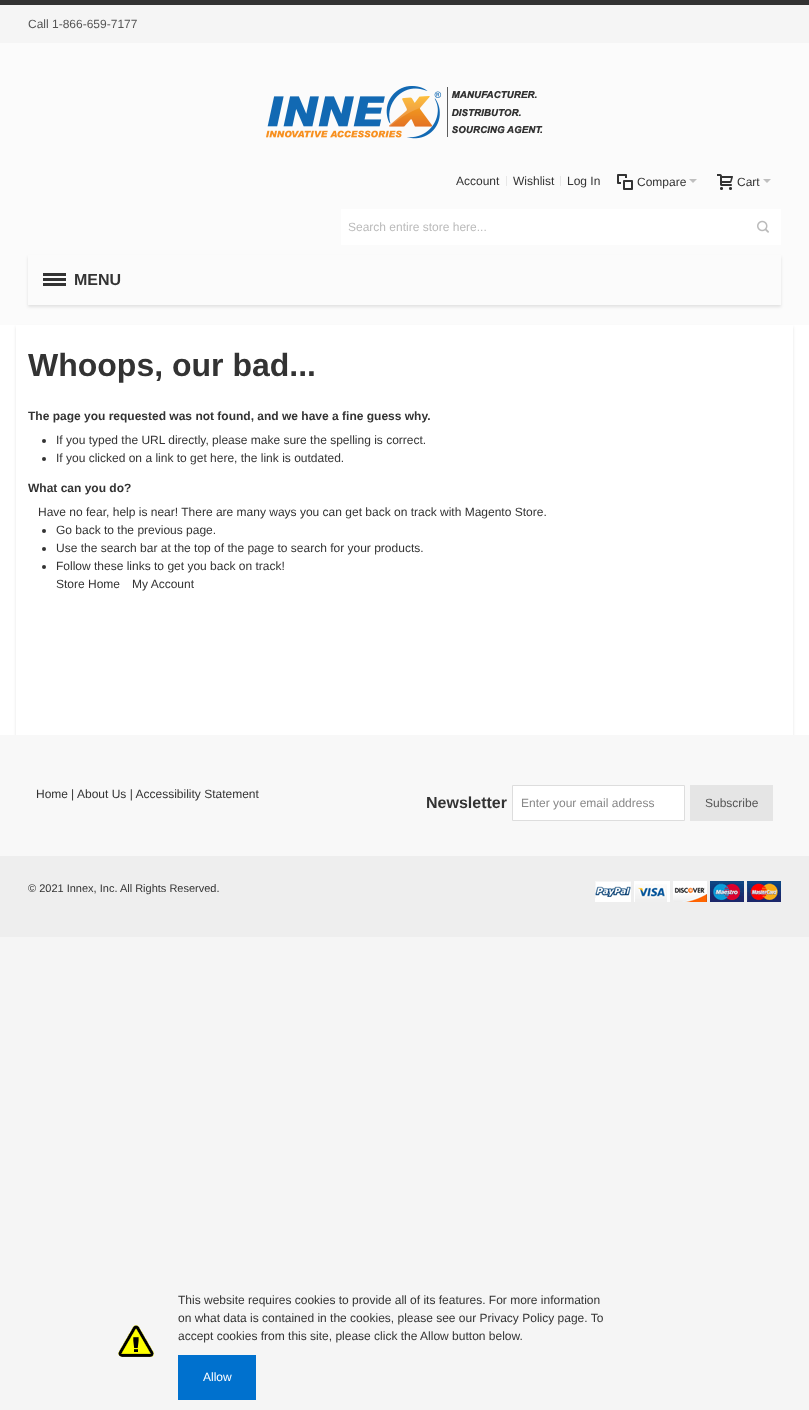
(async () => {
    const canvas = document.querySelector("canvas");
    canvas.width = 809;
    canvas.height = 1410;
    const context = canvas.getContext("2d");
    context.miterLimit = 4;
    context.fontKerning = "normal";
    function write(s, x, y, font, color) {
        context.font = font;
        context.fillStyle = color;
        context.fillText(s, x, y);
    }
    function block(x, y, w, h, color) {
        context.fillStyle = color;
        context.fillRect(x, y, w, h);
    }
    async function photo(src, x, y, w, h) {
        const img = new Image();
        img.src = src;
        await img.decode();
        context.drawImage(img, x, y, w, h);
    }

    block(0, 0, 809, 1410, "rgb(245, 245, 245)");
    block(0, 325, 809, 410, "rgb(255, 255, 255)");
    block(0, 0, 809, 5, "rgb(51, 51, 51)");
    block(0, 43, 809, 282, "rgb(251, 251, 251)");
    write("Call 1-866-659-7177", 28, 28, "12px Liberation Sans", "rgb(85, 85, 85)");
    await photo("media/1.png", 266, 86, 277, 53);
    write("Account", 456, 185, "12px Liberation Sans", "rgb(51, 51, 51)");
    block(506, 176, 1, 10, "rgb(231, 231, 231)");
    write("Wishlist", 513, 185, "12px Liberation Sans", "rgb(51, 51, 51)");
    block(560, 176, 1, 10, "rgb(231, 231, 231)");
    write("Log In", 567, 185, "12px Liberation Sans", "rgb(51, 51, 51)");
    await photo("media/2.png", 617, 174, 16, 16);
    write("Compare", 637, 186, "12px Liberation Sans", "rgb(51, 51, 51)");
    context.fillStyle = "rgb(191, 191, 191)";
    context.beginPath();
    context.moveTo(689, 179);
    context.lineTo(697, 179);
    context.lineTo(693, 183);
    context.closePath();
    context.fill();
    await photo("media/3.png", 717, 174, 16, 16);
    write("Cart", 737, 186, "12px Liberation Sans", "rgb(51, 51, 51)");
    context.fillStyle = "rgb(191, 191, 191)";
    context.beginPath();
    context.moveTo(763, 179);
    context.lineTo(771, 179);
    context.lineTo(767, 183);
    context.closePath();
    context.fill();
    block(341, 209, 440, 36, "rgb(255, 255, 255)");
    write("Search entire store here...", 348, 231, "12px Liberation Sans", "rgb(187, 187, 187)");
    await photo("media/4.png", 757, 220, 12, 13);
    context.save();
    context.beginPath();
    context.moveTo(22, 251);
    context.lineTo(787, 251);
    context.lineTo(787, 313);
    context.lineTo(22, 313);
    context.closePath();
    context.moveTo(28, 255);
    context.lineTo(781, 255);
    context.lineTo(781, 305);
    context.lineTo(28, 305);
    context.closePath();
    context.clip("evenodd");
    context.fillStyle = "rgba(0, 0, 0, 0.1)";
    context.filter = "blur(1.5px)";
    context.beginPath();
    context.rect(28, 257, 753, 50);
    context.fill();
    context.filter = "none";
    context.restore();
    block(43, 273, 23, 3, "rgb(51, 51, 51)");
    block(43, 278, 23, 3, "rgb(51, 51, 51)");
    block(43, 283, 23, 3, "rgb(51, 51, 51)");
    write("MENU", 74, 285, "bold 16px Liberation Sans", "rgb(51, 51, 51)");
    context.save();
    context.beginPath();
    context.moveTo(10, 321);
    context.lineTo(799, 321);
    context.lineTo(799, 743);
    context.lineTo(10, 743);
    context.closePath();
    context.moveTo(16, 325);
    context.lineTo(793, 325);
    context.lineTo(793, 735);
    context.lineTo(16, 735);
    context.closePath();
    context.clip("evenodd");
    context.fillStyle = "rgba(0, 0, 0, 0.1)";
    context.filter = "blur(1.5px)";
    context.beginPath();
    context.rect(16, 327, 777, 410);
    context.fill();
    context.filter = "none";
    context.restore();
    write("Whoops, our bad...", 28, 376, "bold 32px Liberation Sans", "rgb(51, 51, 51)");
    write("The page you requested was not found, and we have a fine guess why.", 28, 420, "bold 12px Liberation Sans", "rgb(51, 51, 51)");
    context.beginPath();
    context.arc(44, 441, 2, 0, Math.PI * 2);
    context.fill();
    write("If you typed the URL directly, please make sure the spelling is correct.", 56, 444, "12px Liberation Sans", "rgb(51, 51, 51)");
    context.beginPath();
    context.arc(44, 459, 2, 0, Math.PI * 2);
    context.fill();
    write("If you clicked on a link to get here, the link is outdated.", 56, 462, "12px Liberation Sans", "rgb(51, 51, 51)");
    write("What can you do?", 28, 492, "bold 12px Liberation Sans", "rgb(51, 51, 51)");
    write("Have no fear, help is near! There are many ways you can get back on track with Magento Store.", 38, 516, "12px Liberation Sans", "rgb(51, 51, 51)");
    context.beginPath();
    context.arc(44, 531, 2, 0, Math.PI * 2);
    context.fill();
    write("Go back to the previous page.", 56, 534, "12px Liberation Sans", "rgb(51, 51, 51)");
    context.beginPath();
    context.arc(44, 549, 2, 0, Math.PI * 2);
    context.fill();
    write("Use the search bar at the top of the page to search for your products.", 56, 552, "12px Liberation Sans", "rgb(51, 51, 51)");
    context.beginPath();
    context.arc(44, 567, 2, 0, Math.PI * 2);
    context.fill();
    write("Follow these links to get you back on track!", 56, 570, "12px Liberation Sans", "rgb(51, 51, 51)");
    write("Store Home", 56, 588, "12px Liberation Sans", "rgb(51, 51, 51)");
    write("My Account", 132, 588, "12px Liberation Sans", "rgb(51, 51, 51)");
    block(0, 735, 809, 121, "rgb(248, 248, 248)");
    write("Home", 36, 798, "12px Liberation Sans", "rgb(51, 51, 51)");
    write("|", 71, 798, "12px Liberation Sans", "rgb(51, 51, 51)");
    write("About Us | Accessibility Statement", 77, 798, "12px Liberation Sans", "rgb(51, 51, 51)");
    write("Newsletter", 426, 808, "bold 16px Liberation Sans", "rgb(51, 51, 51)");
    context.fillStyle = "rgb(255, 255, 255)";
    context.beginPath();
    context.rect(512.5, 785.5, 172, 35);
    context.fill();
    context.strokeStyle = "rgb(221, 221, 221)";
    context.stroke();
    write("Enter your email address", 521, 807, "12px Liberation Sans", "rgb(136, 136, 136)");
    block(690, 785, 83, 36, "rgb(229, 229, 229)");
    write("Subscribe", 705, 807, "12px Liberation Sans", "rgb(85, 85, 85)");
    block(0, 856, 809, 81, "rgb(238, 238, 238)");
    write("© 2021 Innex, Inc. All Rights Reserved.", 28, 892, "11px Liberation Sans", "rgb(51, 51, 51)");
    await photo("media/5.png", 595, 881, 186, 21);
    await photo("media/6.png", 118, 1325, 36, 32);
    write("This website requires cookies to provide all of its features. For more information", 178, 1304, "12px Liberation Sans", "rgb(51, 51, 51)");
    write("on what data is contained in the cookies, please see our Privacy Policy page. To", 178, 1322, "12px Liberation Sans", "rgb(51, 51, 51)");
    write("accept cookies from this site, please click the Allow button below.", 178, 1340, "12px Liberation Sans", "rgb(51, 51, 51)");
    block(178, 1355, 78, 45, "rgb(0, 113, 206)");
    write("Allow", 203, 1381, "12px Liberation Sans", "rgb(255, 255, 255)");
})();
